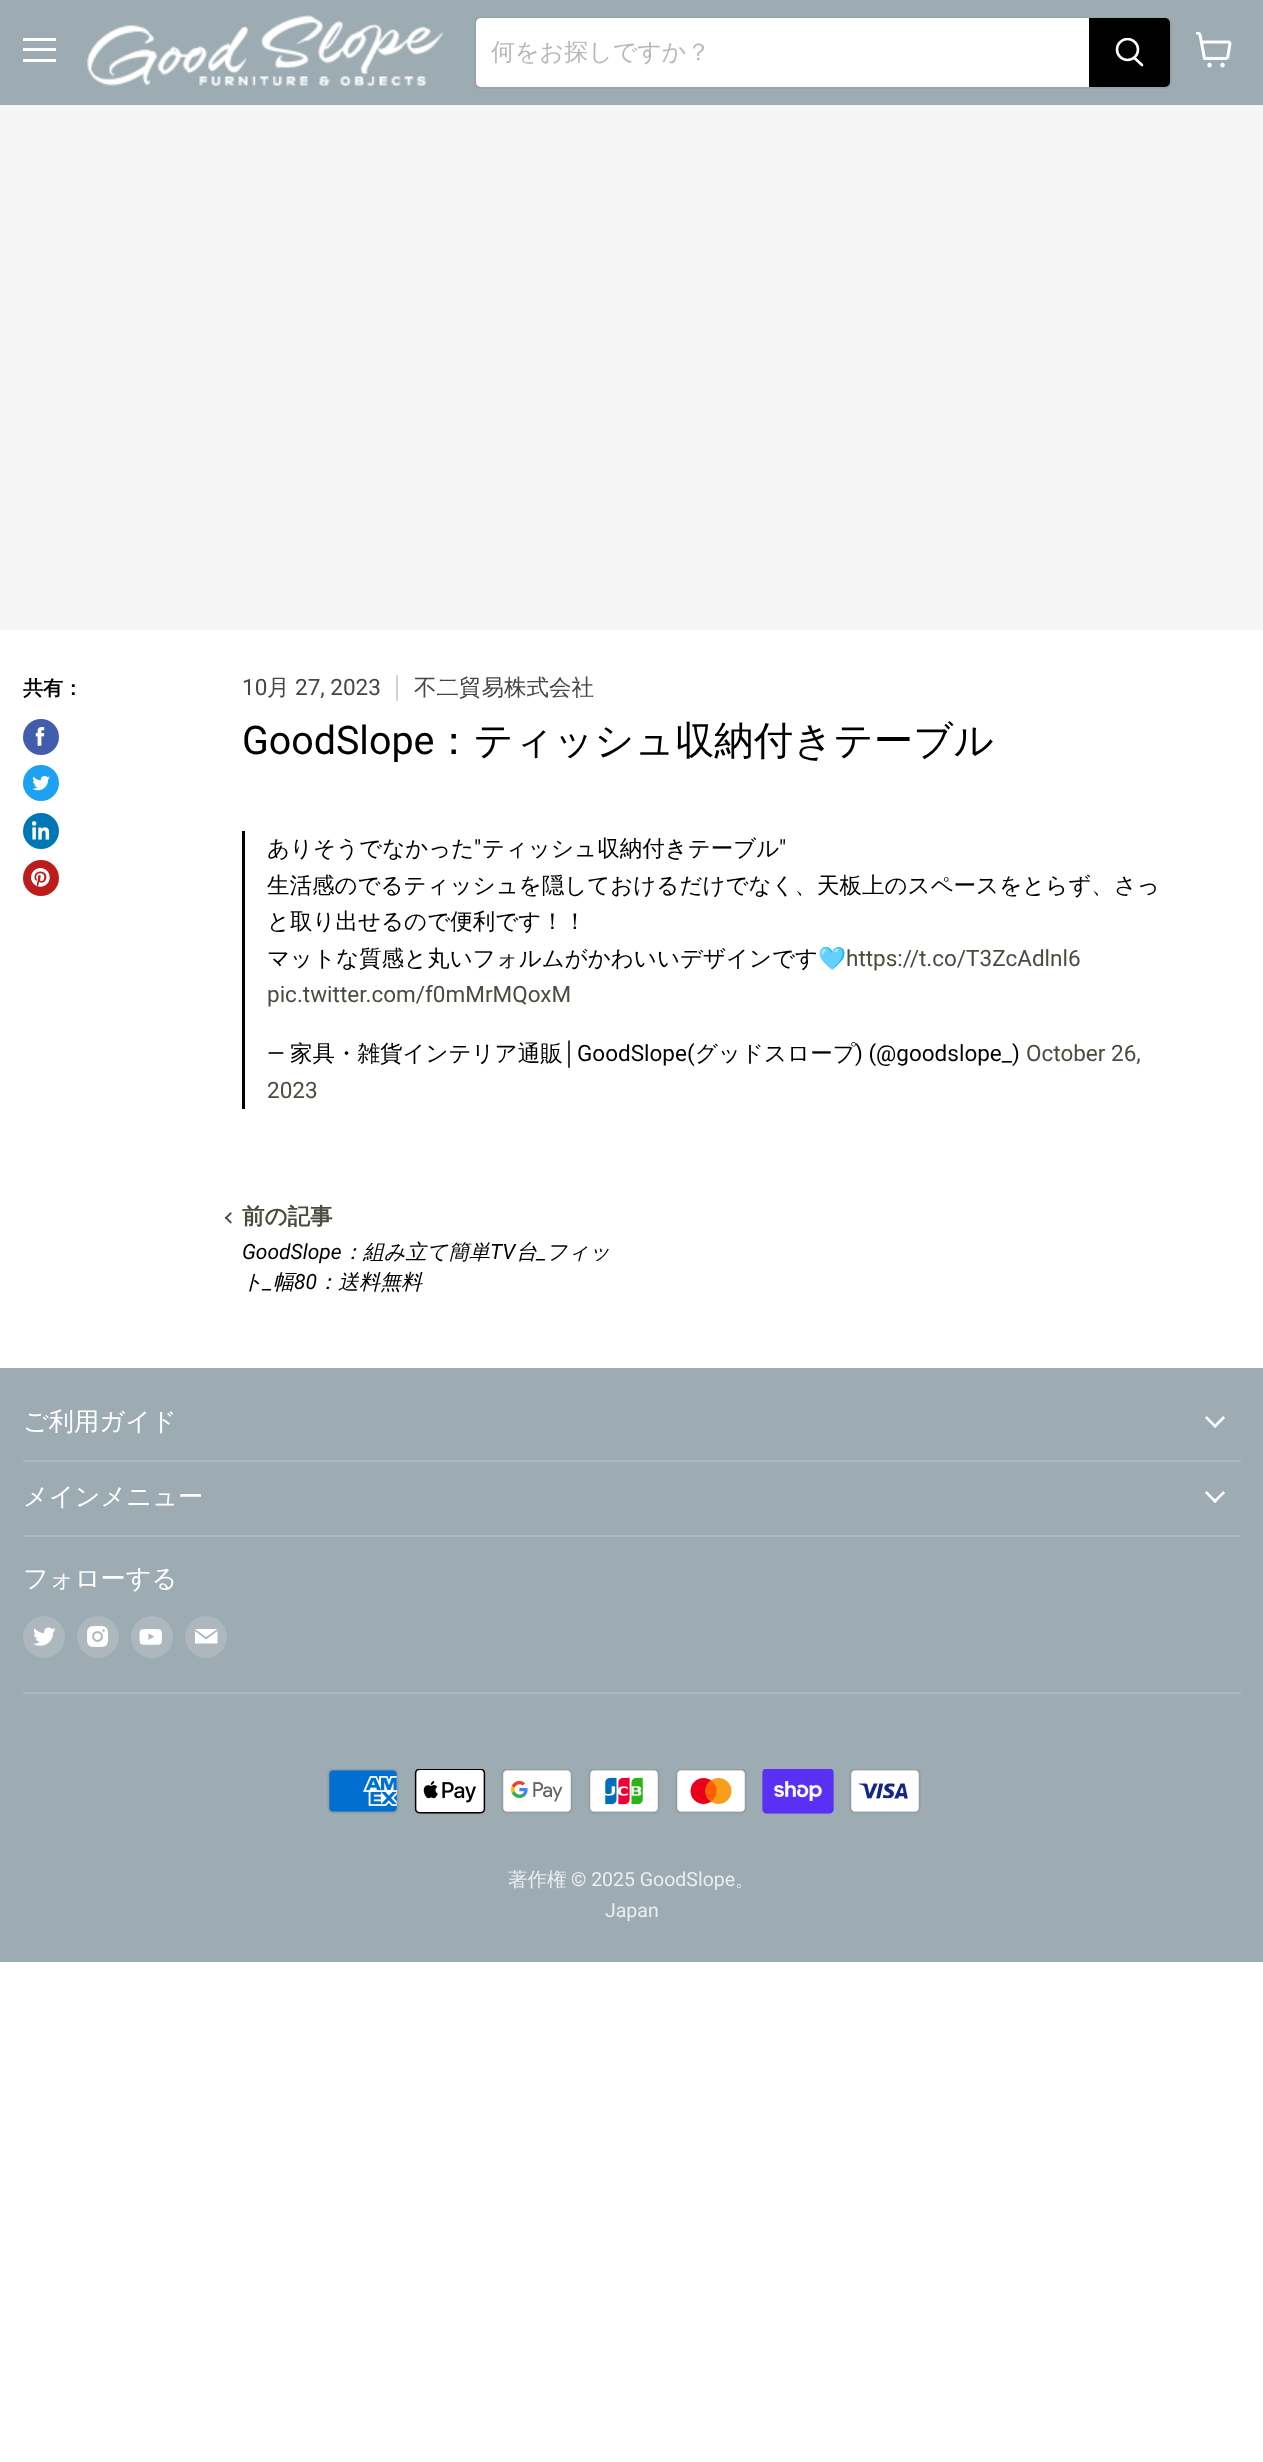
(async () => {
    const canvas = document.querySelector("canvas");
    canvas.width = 1263;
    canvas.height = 2462;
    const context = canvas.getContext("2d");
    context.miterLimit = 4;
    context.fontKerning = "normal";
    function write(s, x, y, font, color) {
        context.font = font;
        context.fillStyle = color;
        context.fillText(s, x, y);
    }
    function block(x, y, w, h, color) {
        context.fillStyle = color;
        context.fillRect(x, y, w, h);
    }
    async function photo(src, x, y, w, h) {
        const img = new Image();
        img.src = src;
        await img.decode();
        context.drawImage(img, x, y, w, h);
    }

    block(0, 0, 1263, 2462, "rgb(255, 255, 255)");
    block(0, 0, 1263, 105, "rgb(157, 172, 178)");
    block(23, 38, 33, 3, "rgb(255, 255, 255)");
    block(23, 48, 33, 3, "rgb(255, 255, 255)");
    block(23, 59, 33, 3, "rgb(255, 255, 255)");
    await photo("media/1.png", 86, 15, 358, 71);
    context.beginPath();
    context.roundRect(475, 18, 696, 70, 5);
    context.strokeStyle = "rgba(128, 128, 128, 0.2)";
    context.lineWidth = 2;
    context.stroke();
    context.beginPath();
    context.roundRect(476, 18, 613, 69, [5, 0, 0, 5]);
    context.fill();
    write("何をお探しですか？", 491, 60, "500 24px WenQuanYi Zen Hei", "rgb(184, 184, 184)");
    context.fillStyle = "rgb(0, 0, 0)";
    context.beginPath();
    context.roundRect(1090, 19, 79, 67, [0, 4, 4, 0]);
    context.fill();
    context.strokeStyle = "rgb(0, 0, 0)";
    context.stroke();
    context.beginPath();
    context.moveTo(1142, 65);
    context.lineTo(1134.5, 58);
    context.strokeStyle = "rgb(255, 255, 255)";
    context.lineWidth = 2.6;
    context.lineCap = "round";
    context.stroke();
    context.save();
    context.beginPath();
    context.rect(1115, 38, 30, 31);
    context.clip();
    context.beginPath();
    context.arc(1127.5, 49.5, 10.5, 0, Math.PI * 2);
    context.stroke();
    context.restore();
    await photo("media/2.png", 1196, 32, 36, 36);
    block(0, 105, 1263, 525, "rgb(245, 245, 245)");
    write("共有：", 23, 695, "bold 20px WenQuanYi Zen Hei", "rgb(0, 0, 0)");
    context.fillStyle = "rgb(66, 93, 171)";
    context.beginPath();
    context.arc(41, 737, 18, 0, Math.PI * 2);
    context.fill();
    await photo("media/3.png", 35, 727, 10, 19);
    context.fillStyle = "rgb(29, 161, 242)";
    context.beginPath();
    context.arc(41, 783, 18, 0, Math.PI * 2);
    context.fill();
    await photo("media/4.png", 32, 775, 18, 16);
    context.fillStyle = "rgb(0, 119, 181)";
    context.beginPath();
    context.arc(41, 831, 18, 0, Math.PI * 2);
    context.fill();
    await photo("media/5.png", 31, 821, 19, 19);
    context.fillStyle = "rgb(189, 28, 28)";
    context.beginPath();
    context.arc(41, 878, 18, 0, Math.PI * 2);
    context.fill();
    await photo("media/6.png", 31, 868, 19, 19);
    write("10", 242, 695, "22.5px Roboto", "rgb(70, 70, 70)");
    write("月", 267, 695, "500 22.5px WenQuanYi Zen Hei", "rgb(70, 70, 70)");
    write("27, 2023", 295, 695, "22.5px Roboto", "rgb(70, 70, 70)");
    block(396, 675, 2, 26, "rgb(211, 211, 211)");
    write("不二貿易株式会社", 414, 695, "500 22.5px WenQuanYi Zen Hei", "rgb(70, 70, 70)");
    write("GoodSlope", 242, 754, "39.4px Roboto", "rgb(0, 0, 0)");
    write("：ティッシュ収納付きテーブル", 434, 754, "500 39.4px WenQuanYi Zen Hei", "rgb(0, 0, 0)");
    block(242, 831, 3, 278, "rgb(0, 0, 0)");
    write("ありそうでなかった", 267, 856, "500 22.5px WenQuanYi Zen Hei", "rgb(0, 0, 0)");
    write("\"", 474, 856, "22.5px Roboto", "rgb(0, 0, 0)");
    write("ティッシュ収納付きテーブル", 482, 856, "500 22.5px WenQuanYi Zen Hei", "rgb(0, 0, 0)");
    write("\"", 779, 856, "22.5px Roboto", "rgb(0, 0, 0)");
    write("生活感のでるティッシュを隠しておけるだけでなく、天板上のスペースをとらず、さっ", 267, 893, "500 22.5px WenQuanYi Zen Hei", "rgb(0, 0, 0)");
    write("と取り出せるので便利です！！", 267, 929, "500 22.5px WenQuanYi Zen Hei", "rgb(0, 0, 0)");
    write("マットな質感と丸いフォルムがかわいいデザインです", 267, 966, "500 22.5px WenQuanYi Zen Hei", "rgb(0, 0, 0)");
    write("🩵", 818, 966, "22.5px Noto Color Emoji", "rgb(0, 0, 0)");
    write("https://t.co/T3ZcAdlnl6", 846, 966, "22.5px Roboto", "rgb(73, 77, 65)");
    write("pic.twitter.com/f0mMrMQoxM", 267, 1002, "22.5px Roboto", "rgb(73, 77, 65)");
    write("—", 267, 1061, "22.5px Roboto", "rgb(0, 0, 0)");
    write("家具・雑貨インテリア通販", 290, 1061, "500 22.5px WenQuanYi Zen Hei", "rgb(0, 0, 0)");
    write("│", 563, 1061, "22.5px Liberation Sans", "rgb(0, 0, 0)");
    write("GoodSlope(", 577, 1061, "22.5px Roboto", "rgb(0, 0, 0)");
    write("グッドスロープ", 695, 1061, "500 22.5px WenQuanYi Zen Hei", "rgb(0, 0, 0)");
    write(") (@goodslope_)", 855, 1061, "22.5px Roboto", "rgb(0, 0, 0)");
    write("October 26,", 1026, 1061, "22.5px Roboto", "rgb(73, 77, 65)");
    write("2023", 267, 1098, "22.5px Roboto", "rgb(73, 77, 65)");
    await photo("media/7.png", 224, 1212, 8, 12);
    write("前の記事", 242, 1224, "bold 22.5px WenQuanYi Zen Hei", "rgb(73, 77, 65)");
    write("GoodSlope", 242, 1259, "italic 21px Roboto", "rgb(0, 0, 0)");
    write("：組み立て簡単", 342, 1259, "italic 500 21px WenQuanYi Zen Hei", "rgb(0, 0, 0)");
    write("TV", 490, 1259, "italic 21px Roboto", "rgb(0, 0, 0)");
    write("台", 516, 1259, "italic 500 21px WenQuanYi Zen Hei", "rgb(0, 0, 0)");
    write("_", 537, 1259, "italic 21px Roboto", "rgb(0, 0, 0)");
    write("フィッ", 546, 1259, "italic 500 21px WenQuanYi Zen Hei", "rgb(0, 0, 0)");
    write("ト", 242, 1289, "italic 500 21px WenQuanYi Zen Hei", "rgb(0, 0, 0)");
    write("_", 263, 1289, "italic 21px Roboto", "rgb(0, 0, 0)");
    write("幅", 273, 1289, "italic 500 21px WenQuanYi Zen Hei", "rgb(0, 0, 0)");
    write("80", 294, 1289, "italic 21px Roboto", "rgb(0, 0, 0)");
    write("：送料無料", 317, 1289, "italic 500 21px WenQuanYi Zen Hei", "rgb(0, 0, 0)");
    block(0, 1368, 1263, 594, "rgb(157, 172, 178)");
    block(23, 1460, 1218, 2, "rgb(172, 184, 190)");
    write("ご利用ガイド", 23, 1430, "500 25.25px WenQuanYi Zen Hei", "rgb(255, 255, 255)");
    await photo("media/8.png", 1205, 1416, 20, 12);
    block(23, 1535, 1218, 2, "rgb(172, 184, 190)");
    write("メインメニュー", 23, 1505, "500 25.25px WenQuanYi Zen Hei", "rgb(255, 255, 255)");
    await photo("media/8.png", 1205, 1491, 20, 12);
    block(23, 1692, 1218, 2, "rgb(172, 184, 190)");
    write("フォローする", 23, 1587, "500 25.25px WenQuanYi Zen Hei", "rgb(255, 255, 255)");
    context.fillStyle = "rgb(172, 184, 190)";
    context.beginPath();
    context.arc(44, 1637, 21, 0, Math.PI * 2);
    context.fill();
    await photo("media/9.png", 33, 1627, 23, 19);
    context.beginPath();
    context.arc(98, 1637, 21, 0, Math.PI * 2);
    context.fill();
    await photo("media/10.png", 87, 1626, 21, 21);
    context.beginPath();
    context.arc(152, 1637, 21, 0, Math.PI * 2);
    context.fill();
    await photo("media/11.png", 139, 1629, 23, 16);
    context.beginPath();
    context.arc(206, 1637, 21, 0, Math.PI * 2);
    context.fill();
    context.fillStyle = "rgb(255, 255, 255)";
    context.beginPath();
    context.moveTo(217.5, 1629);
    context.lineTo(195, 1629);
    context.lineTo(206, 1637);
    context.closePath();
    context.moveTo(206, 1639.5);
    context.lineTo(195, 1631);
    context.lineTo(195, 1643.5);
    context.lineTo(217.5, 1643.5);
    context.lineTo(217.5, 1631);
    context.closePath();
    context.fill("evenodd");
    await photo("media/12.png", 327, 1769, 72, 45);
    await photo("media/13.png", 414, 1769, 72, 45);
    await photo("media/14.png", 501, 1769, 72, 45);
    await photo("media/15.png", 588, 1769, 72, 45);
    await photo("media/16.png", 675, 1769, 72, 45);
    await photo("media/17.png", 762, 1769, 72, 45);
    await photo("media/18.png", 849, 1769, 72, 45);
    write("著作権", 508, 1886, "500 19.5px WenQuanYi Zen Hei", "rgb(235, 238, 240)");
    write("© 2025 GoodSlope", 571, 1886, "19.5px Roboto", "rgb(235, 238, 240)");
    write("。", 735, 1886, "500 19.5px WenQuanYi Zen Hei", "rgb(235, 238, 240)");
    write("Japan", 605, 1917, "19.5px Roboto", "rgb(235, 238, 240)");
})();
